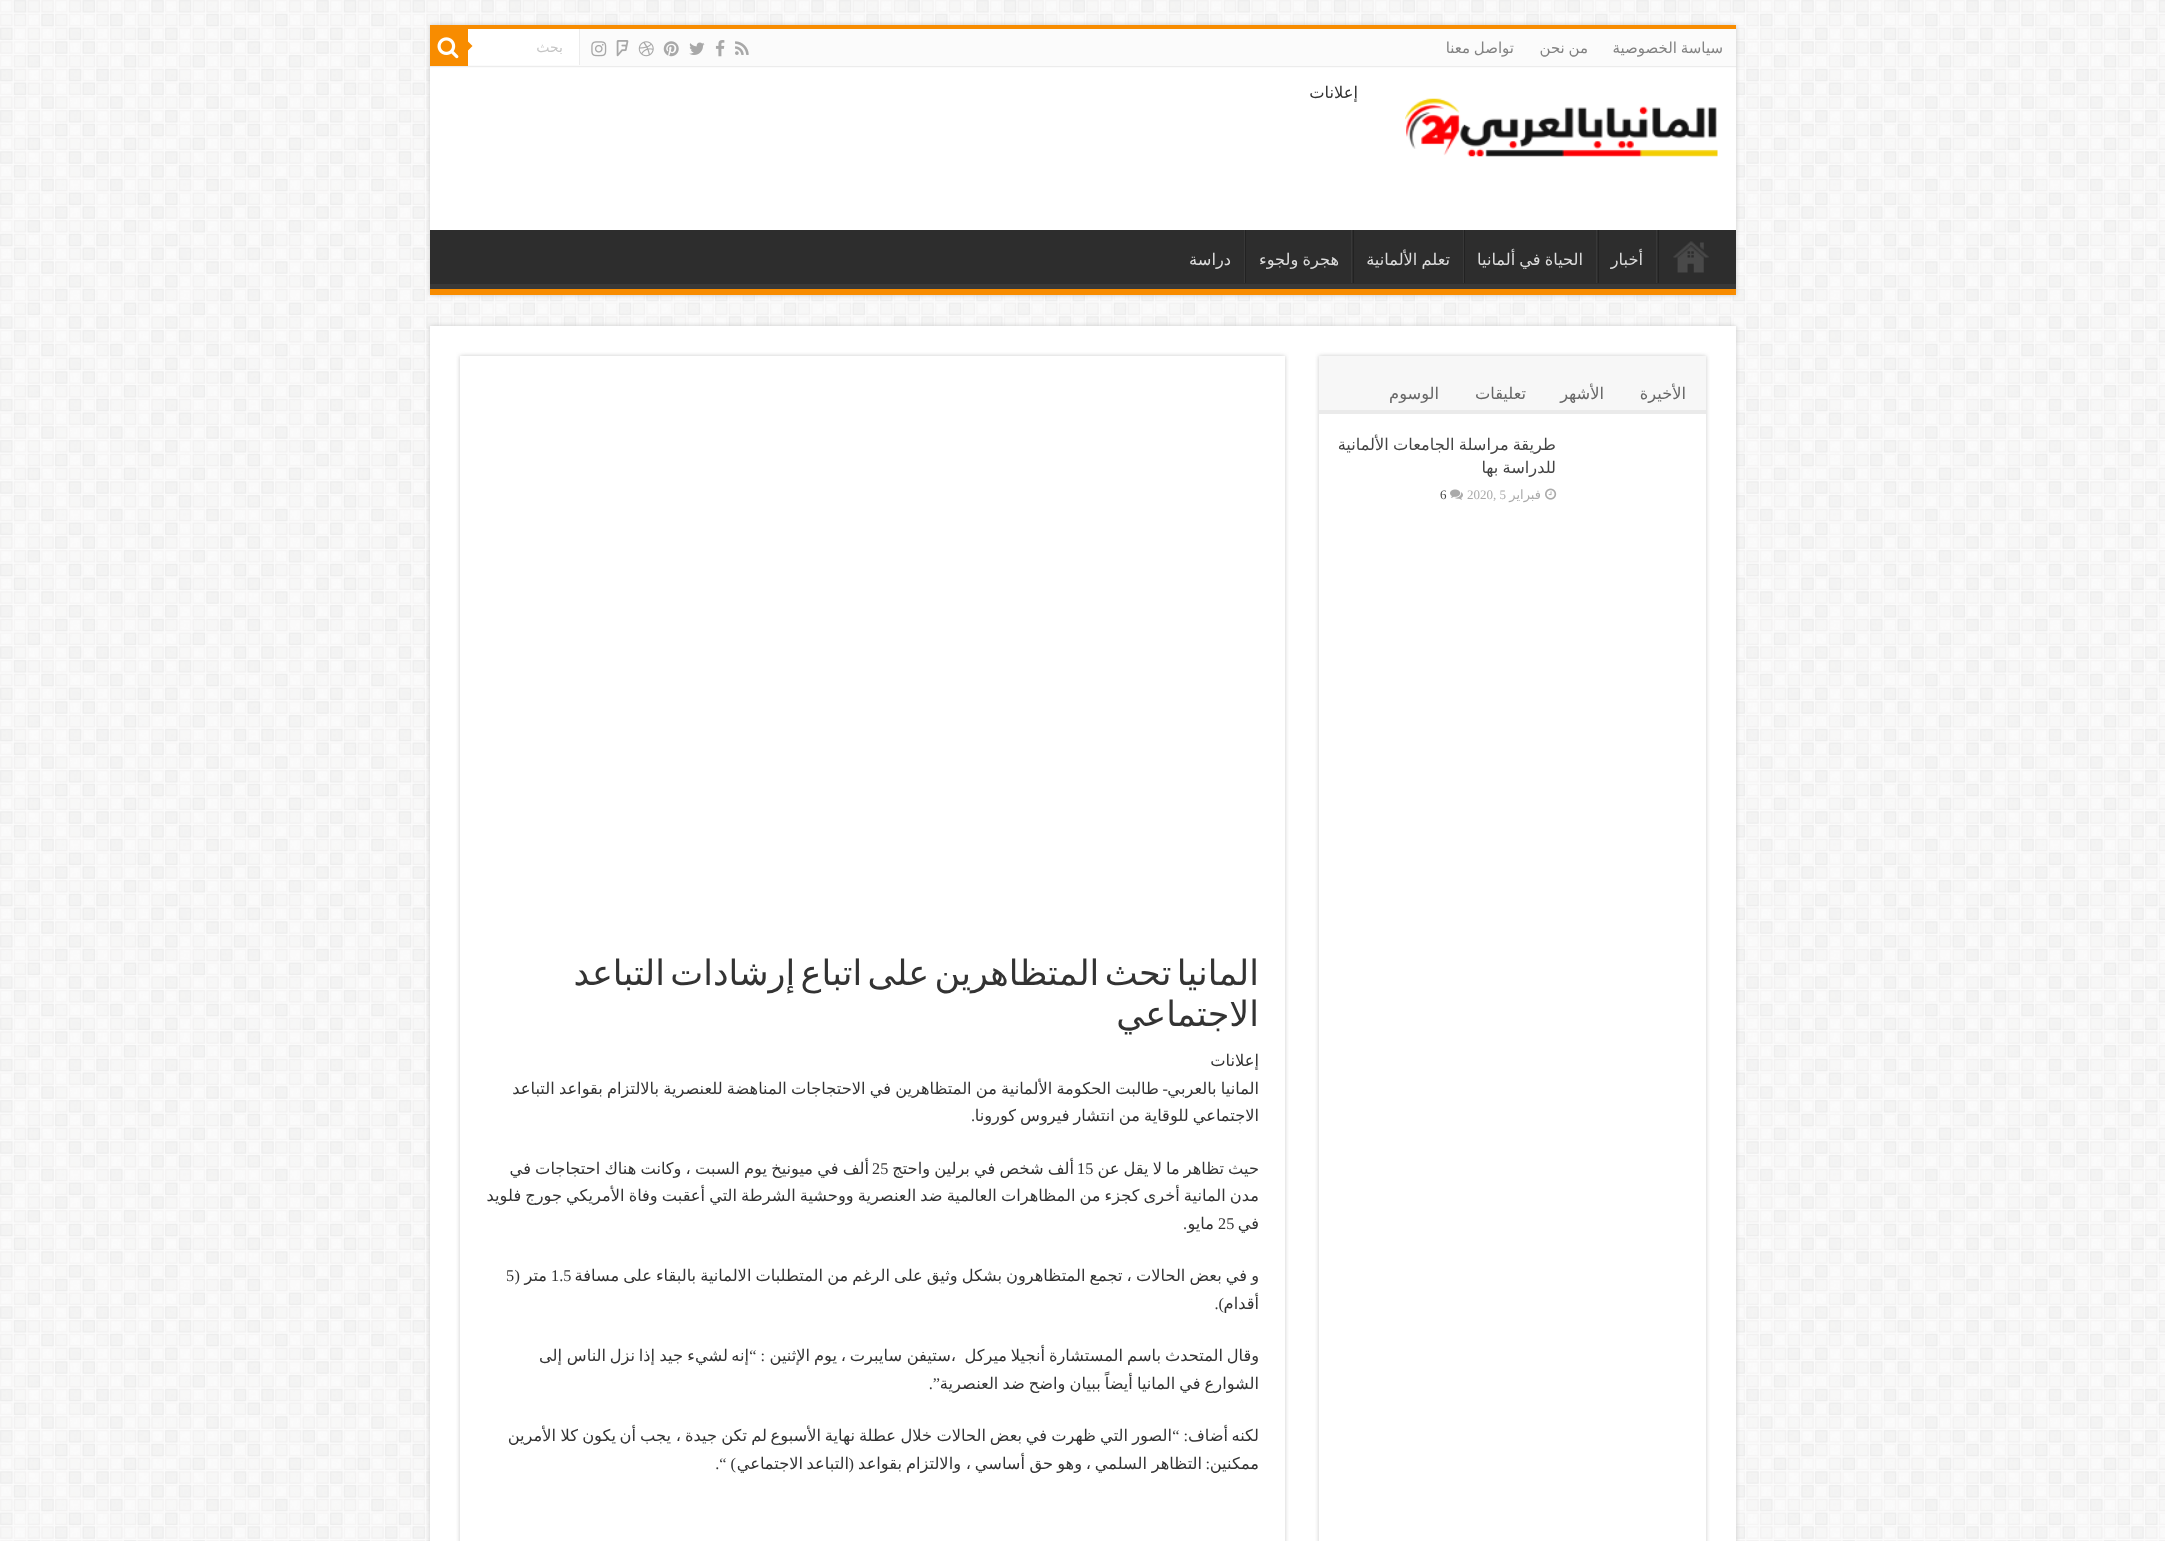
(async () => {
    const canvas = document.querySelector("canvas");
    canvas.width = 2165;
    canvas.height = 1541;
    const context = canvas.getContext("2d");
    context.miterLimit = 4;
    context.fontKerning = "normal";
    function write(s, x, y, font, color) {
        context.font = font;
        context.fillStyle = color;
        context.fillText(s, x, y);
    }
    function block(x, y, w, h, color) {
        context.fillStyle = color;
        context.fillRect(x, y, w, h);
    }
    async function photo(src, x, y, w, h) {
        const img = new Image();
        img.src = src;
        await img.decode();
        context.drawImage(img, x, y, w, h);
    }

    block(0, 0, 2165, 1541, "rgb(255, 255, 255)");
    await photo("media/1.png", 0, 0, 2165, 1541);
    context.fillStyle = "rgb(202, 202, 202)";
    context.filter = "blur(2px)";
    context.beginPath();
    context.rect(430, 25, 1306, 270);
    context.fill();
    context.filter = "none";
    block(430, 68, 1306, 162, "rgb(255, 255, 255)");
    block(430, 25, 1306, 4, "rgb(248, 140, 0)");
    block(430, 29, 1306, 39, "rgb(251, 251, 251)");
    block(430, 66, 1306, 1, "rgb(236, 236, 236)");
    context.wordSpacing = "-1px";
    context.direction = "rtl";
    write("سياسة الخصوصية", 1723, 53, "15px DejaVu Sans", "rgb(131, 131, 131)");
    write("من نحن", 1588, 53, "15px DejaVu Sans", "rgb(131, 131, 131)");
    write("تواصل معنا", 1514, 53, "15px DejaVu Sans", "rgb(131, 131, 131)");
    await photo("media/2.png", 735, 41, 14, 14);
    await photo("media/3.png", 715, 40, 10, 17);
    await photo("media/4.png", 689, 42, 16, 13);
    await photo("media/5.png", 663, 41, 16, 16);
    await photo("media/6.png", 638, 41, 16, 16);
    await photo("media/7.png", 616, 40, 13, 17);
    await photo("media/8.png", 591, 41, 16, 16);
    block(468, 29, 111, 36, "rgb(255, 255, 255)");
    block(579, 29, 1, 36, "rgb(236, 236, 236)");
    context.wordSpacing = "0px";
    write("بحث", 563, 52, "14px DejaVu Sans", "rgb(197, 197, 197)");
    block(430, 29, 38, 37, "rgb(248, 140, 0)");
    await photo("media/9.png", 437, 37, 22, 22);
    context.beginPath();
    context.moveTo(467.5, 51);
    context.lineTo(467.5, 41);
    context.lineTo(472.5, 46);
    context.closePath();
    context.fill();
    write("إعلانات", 1358, 98, "16.25px DejaVu Sans", "rgb(51, 51, 51)");
    await photo("media/10.png", 1405, 98, 313, 59);
    block(430, 230, 1306, 54, "rgb(45, 45, 45)");
    context.save();
    context.beginPath();
    context.rect(430, 230, 1306, 59);
    context.clip();
    context.fillStyle = "rgb(57, 57, 57)";
    context.beginPath();
    context.moveTo(306, 106);
    context.lineTo(1860, 106);
    context.lineTo(1860, 412);
    context.lineTo(306, 412);
    context.closePath();
    context.moveTo(429, 222);
    context.lineTo(1735, 222);
    context.bezierCurveTo(1736, 222, 1736, 223, 1736, 224);
    context.lineTo(1736, 282);
    context.bezierCurveTo(1736, 283, 1736, 284, 1735, 284);
    context.lineTo(429, 284);
    context.bezierCurveTo(428, 284, 428, 283, 428, 282);
    context.lineTo(428, 224);
    context.bezierCurveTo(428, 223, 428, 222, 429, 222);
    context.closePath();
    context.fill("evenodd");
    context.restore();
    block(430, 289, 1306, 6, "rgb(248, 140, 0)");
    await photo("media/11.png", 1673, 241, 36, 32);
    block(1658, 230, 1, 53, "rgb(34, 34, 34)");
    block(1656, 230, 1, 53, "rgb(56, 56, 56)");
    write("أخبار", 1643, 265, "16.25px DejaVu Sans", "rgb(221, 221, 221)");
    block(1598, 230, 1, 53, "rgb(34, 34, 34)");
    block(1596, 230, 1, 53, "rgb(56, 56, 56)");
    context.wordSpacing = "-1.1px";
    write("الحياة في ألمانيا", 1583, 265, "16.25px DejaVu Sans", "rgb(221, 221, 221)");
    block(1464, 230, 1, 53, "rgb(34, 34, 34)");
    block(1463, 230, 1, 53, "rgb(56, 56, 56)");
    write("تعلم الألمانية", 1450, 265, "16.25px DejaVu Sans", "rgb(221, 221, 221)");
    block(1353, 230, 1, 53, "rgb(34, 34, 34)");
    block(1351, 230, 1, 53, "rgb(56, 56, 56)");
    write("هجرة ولجوء", 1339, 265, "16.25px DejaVu Sans", "rgb(221, 221, 221)");
    block(1245, 230, 1, 53, "rgb(34, 34, 34)");
    block(1244, 230, 1, 53, "rgb(56, 56, 56)");
    context.wordSpacing = "0px";
    write("دراسة", 1231, 265, "16.25px DejaVu Sans", "rgb(221, 221, 221)");
    context.fillStyle = "rgb(202, 202, 202)";
    context.filter = "blur(2px)";
    context.beginPath();
    context.rect(430, 326, 1306, 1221);
    context.fill();
    context.filter = "none";
    block(430, 326, 1306, 1215, "rgb(255, 255, 255)");
    context.fillStyle = "rgb(202, 202, 202)";
    context.filter = "blur(2px)";
    context.beginPath();
    context.rect(1319, 356, 387, 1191);
    context.fill();
    context.filter = "none";
    block(1319, 414, 387, 1127, "rgb(255, 255, 255)");
    block(1319, 356, 387, 54, "rgb(247, 247, 247)");
    block(1319, 410, 387, 4, "rgb(234, 234, 234)");
    write("الأخيرة", 1686, 399, "16.25px DejaVu Sans", "rgb(102, 102, 102)");
    write("الأشهر", 1604, 399, "16.25px DejaVu Sans", "rgb(102, 102, 102)");
    write("تعليقات", 1526, 399, "16.25px DejaVu Sans", "rgb(102, 102, 102)");
    write("الوسوم", 1439, 399, "16.25px DejaVu Sans", "rgb(102, 102, 102)");
    context.wordSpacing = "-1.1px";
    write("طريقة مراسلة الجامعات الألمانية", 1556, 450, "16.25px DejaVu Sans", "rgb(68, 68, 68)");
    write("للدراسة بها", 1556, 473, "16.25px DejaVu Sans", "rgb(68, 68, 68)");
    await photo("media/12.png", 1545, 488, 12, 12);
    context.wordSpacing = "0px";
    write("فبراير", 1541, 499, "13px DejaVu Sans", "rgb(170, 170, 170)");
    context.direction = "ltr";
    write("2020, 5", 1467, 499, "13px Liberation Serif", "rgb(170, 170, 170)");
    await photo("media/13.png", 1450, 489, 13, 11);
    write("6", 1440, 499, "13px Liberation Serif", "rgb(68, 68, 68)");
    context.fillStyle = "rgb(202, 202, 202)";
    context.filter = "blur(2px)";
    context.beginPath();
    context.rect(460, 356, 825, 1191);
    context.fill();
    context.filter = "none";
    block(460, 356, 825, 1185, "rgb(255, 255, 255)");
    context.wordSpacing = "-5.75px";
    context.direction = "rtl";
    write("المانيا تحث المتظاهرين على اتباع إرشادات التباعد", 1259, 985, "35px DejaVu Sans", "rgb(51, 51, 51)");
    context.wordSpacing = "0px";
    write("الاجتماعي", 1259, 1026, "35px DejaVu Sans", "rgb(51, 51, 51)");
    write("إعلانات", 1259, 1066, "16.25px DejaVu Sans", "rgb(51, 51, 51)");
    context.wordSpacing = "-1px";
    write("المانيا بالعربي", 1259, 1094, "16.25px DejaVu Sans", "rgb(51, 51, 51)");
    context.wordSpacing = "0px";
    write("-", 1168, 1094, "16.25px Liberation Serif", "rgb(51, 51, 51)");
    context.wordSpacing = "-1px";
    write("طالبت الحكومة الألمانية من المتظاهرين في الاحتجاجات المناهضة للعنصرية بالالتزام بقواعد التباعد", 1159, 1094, "16.25px DejaVu Sans", "rgb(51, 51, 51)");
    context.wordSpacing = "-1.1px";
    write("الاجتماعي للوقاية من انتشار فيروس كورونا", 1259, 1121, "16.25px DejaVu Sans", "rgb(51, 51, 51)");
    context.wordSpacing = "0px";
    write(".", 975, 1121, "16.25px Liberation Serif", "rgb(51, 51, 51)");
    context.wordSpacing = "-1.1px";
    write("حيث تظاهر ما لا يقل عن", 1259, 1174, "16.25px DejaVu Sans", "rgb(51, 51, 51)");
    context.wordSpacing = "0px";
    context.direction = "ltr";
    write("15", 1077, 1174, "16.25px Liberation Serif", "rgb(51, 51, 51)");
    context.wordSpacing = "-1px";
    context.direction = "rtl";
    write("ألف شخص في برلين واحتج", 1074, 1174, "16.25px DejaVu Sans", "rgb(51, 51, 51)");
    context.wordSpacing = "0px";
    context.direction = "ltr";
    write("25", 872, 1174, "16.25px Liberation Serif", "rgb(51, 51, 51)");
    context.wordSpacing = "-1px";
    context.direction = "rtl";
    write("ألف في ميونيخ يوم السبت ، وكانت هناك احتجاجات في", 869, 1174, "16.25px DejaVu Sans", "rgb(51, 51, 51)");
    context.wordSpacing = "-1.1px";
    write("مدن المانية أخرى كجزء من المظاهرات العالمية ضد العنصرية ووحشية الشرطة التي أعقبت وفاة الأمريكي جورج فلويد", 1259, 1201, "16.25px DejaVu Sans", "rgb(51, 51, 51)");
    context.wordSpacing = "0px";
    write("في", 1259, 1229, "16.25px DejaVu Sans", "rgb(51, 51, 51)");
    context.direction = "ltr";
    write("25", 1218, 1229, "16.25px Liberation Serif", "rgb(51, 51, 51)");
    context.direction = "rtl";
    write("مايو", 1214, 1229, "16.25px DejaVu Sans", "rgb(51, 51, 51)");
    write(".", 1187, 1229, "16.25px Liberation Serif", "rgb(51, 51, 51)");
    context.wordSpacing = "-1.1px";
    write("و في بعض الحالات ، تجمع المتظاهرون بشكل وثيق على الرغم من المتطلبات الالمانية بالبقاء على مسافة", 1259, 1281, "16.25px DejaVu Sans", "rgb(51, 51, 51)");
    context.wordSpacing = "0px";
    context.direction = "ltr";
    write("1.5", 551, 1281, "16.25px Liberation Serif", "rgb(51, 51, 51)");
    context.direction = "rtl";
    write("متر", 547, 1281, "16.25px DejaVu Sans", "rgb(51, 51, 51)");
    write("(", 520, 1281, "16.25px Liberation Serif", "rgb(51, 51, 51)");
    context.direction = "ltr";
    write("5", 506, 1281, "16.25px Liberation Serif", "rgb(51, 51, 51)");
    context.direction = "rtl";
    write("أقدام", 1259, 1309, "16.25px DejaVu Sans", "rgb(51, 51, 51)");
    write(").", 1224, 1309, "16.25px Liberation Serif", "rgb(51, 51, 51)");
    write("وقال", 1259, 1361, "16.25px DejaVu Sans", "rgb(51, 51, 51)");
    write("المتحدث", 1223, 1361, "16.25px DejaVu Sans", "rgb(51, 51, 51)");
    write("باسم", 1161, 1361, "16.25px DejaVu Sans", "rgb(51, 51, 51)");
    write("المستشارة", 1123, 1361, "16.25px DejaVu Sans", "rgb(51, 51, 51)");
    write("أنجيلا", 1045, 1361, "16.25px DejaVu Sans", "rgb(51, 51, 51)");
    write("ميركل", 1007, 1361, "16.25px DejaVu Sans", "rgb(51, 51, 51)");
    write("،ستيفن", 956, 1361, "16.25px DejaVu Sans", "rgb(51, 51, 51)");
    write("سايبرت", 902, 1361, "16.25px DejaVu Sans", "rgb(51, 51, 51)");
    write("،", 846, 1361, "16.25px DejaVu Sans", "rgb(51, 51, 51)");
    write("يوم", 837, 1361, "16.25px DejaVu Sans", "rgb(51, 51, 51)");
    write("الإثنين", 810, 1361, "16.25px DejaVu Sans", "rgb(51, 51, 51)");
    write(": “", 765, 1361, "16.25px Liberation Serif", "rgb(51, 51, 51)");
    write("إنه", 749, 1361, "16.25px DejaVu Sans", "rgb(51, 51, 51)");
    write("لشيء", 728, 1361, "16.25px DejaVu Sans", "rgb(51, 51, 51)");
    write("جيد", 683, 1361, "16.25px DejaVu Sans", "rgb(51, 51, 51)");
    write("إذا", 655, 1361, "16.25px DejaVu Sans", "rgb(51, 51, 51)");
    write("نزل", 635, 1361, "16.25px DejaVu Sans", "rgb(51, 51, 51)");
    write("الناس", 606, 1361, "16.25px DejaVu Sans", "rgb(51, 51, 51)");
    write("إلى", 562, 1361, "16.25px DejaVu Sans", "rgb(51, 51, 51)");
    context.wordSpacing = "-1.1px";
    write("الشوارع في المانيا أيضاً ببيان واضح ضد العنصرية", 1259, 1389, "16.25px DejaVu Sans", "rgb(51, 51, 51)");
    context.wordSpacing = "0px";
    write("”.", 940, 1389, "16.25px Liberation Serif", "rgb(51, 51, 51)");
    write("لكنه", 1259, 1441, "16.25px DejaVu Sans", "rgb(51, 51, 51)");
    write("أضاف", 1228, 1441, "16.25px DejaVu Sans", "rgb(51, 51, 51)");
    write(": “", 1188, 1441, "16.25px Liberation Serif", "rgb(51, 51, 51)");
    write("الصور", 1172, 1441, "16.25px DejaVu Sans", "rgb(51, 51, 51)");
    write("التي", 1128, 1441, "16.25px DejaVu Sans", "rgb(51, 51, 51)");
    write("ظهرت", 1096, 1441, "16.25px DejaVu Sans", "rgb(51, 51, 51)");
    write("في", 1047, 1441, "16.25px DejaVu Sans", "rgb(51, 51, 51)");
    write("بعض", 1022, 1441, "16.25px DejaVu Sans", "rgb(51, 51, 51)");
    write("الحالات", 986, 1441, "16.25px DejaVu Sans", "rgb(51, 51, 51)");
    write("خلال", 932, 1441, "16.25px DejaVu Sans", "rgb(51, 51, 51)");
    write("عطلة", 896, 1441, "16.25px DejaVu Sans", "rgb(51, 51, 51)");
    write("نهاية", 855, 1441, "16.25px DejaVu Sans", "rgb(51, 51, 51)");
    write("الأسبوع", 821, 1441, "16.25px DejaVu Sans", "rgb(51, 51, 51)");
    write("لم", 767, 1441, "16.25px DejaVu Sans", "rgb(51, 51, 51)");
    write("تكن", 747, 1441, "16.25px DejaVu Sans", "rgb(51, 51, 51)");
    write("جيدة", 717, 1441, "16.25px DejaVu Sans", "rgb(51, 51, 51)");
    write("،", 681, 1441, "16.25px DejaVu Sans", "rgb(51, 51, 51)");
    write("يجب", 671, 1441, "16.25px DejaVu Sans", "rgb(51, 51, 51)");
    write("أن", 636, 1441, "16.25px DejaVu Sans", "rgb(51, 51, 51)");
    write("يكون", 616, 1441, "16.25px DejaVu Sans", "rgb(51, 51, 51)");
    write("كلا", 578, 1441, "16.25px DejaVu Sans", "rgb(51, 51, 51)");
    write("الأمرين", 556, 1441, "16.25px DejaVu Sans", "rgb(51, 51, 51)");
    write("ممكنين", 1259, 1469, "16.25px DejaVu Sans", "rgb(51, 51, 51)");
    write(":", 1210, 1469, "16.25px Liberation Serif", "rgb(51, 51, 51)");
    write("التظاهر", 1202, 1469, "16.25px DejaVu Sans", "rgb(51, 51, 51)");
    write("السلمي", 1147, 1469, "16.25px DejaVu Sans", "rgb(51, 51, 51)");
    write("،", 1091, 1469, "16.25px DejaVu Sans", "rgb(51, 51, 51)");
    write("وهو", 1082, 1469, "16.25px DejaVu Sans", "rgb(51, 51, 51)");
    write("حق", 1053, 1469, "16.25px DejaVu Sans", "rgb(51, 51, 51)");
    write("أساسي", 1025, 1469, "16.25px DejaVu Sans", "rgb(51, 51, 51)");
    write("،", 971, 1469, "16.25px DejaVu Sans", "rgb(51, 51, 51)");
    write("والالتزام", 961, 1469, "16.25px DejaVu Sans", "rgb(51, 51, 51)");
    write("بقواعد", 902, 1469, "16.25px DejaVu Sans", "rgb(51, 51, 51)");
    write("(", 854, 1469, "16.25px Liberation Serif", "rgb(51, 51, 51)");
    write("التباعد", 849, 1469, "16.25px DejaVu Sans", "rgb(51, 51, 51)");
    write("الاجتماعي", 803, 1469, "16.25px DejaVu Sans", "rgb(51, 51, 51)");
    write(") “.", 736, 1469, "16.25px Liberation Serif", "rgb(51, 51, 51)");
})();
